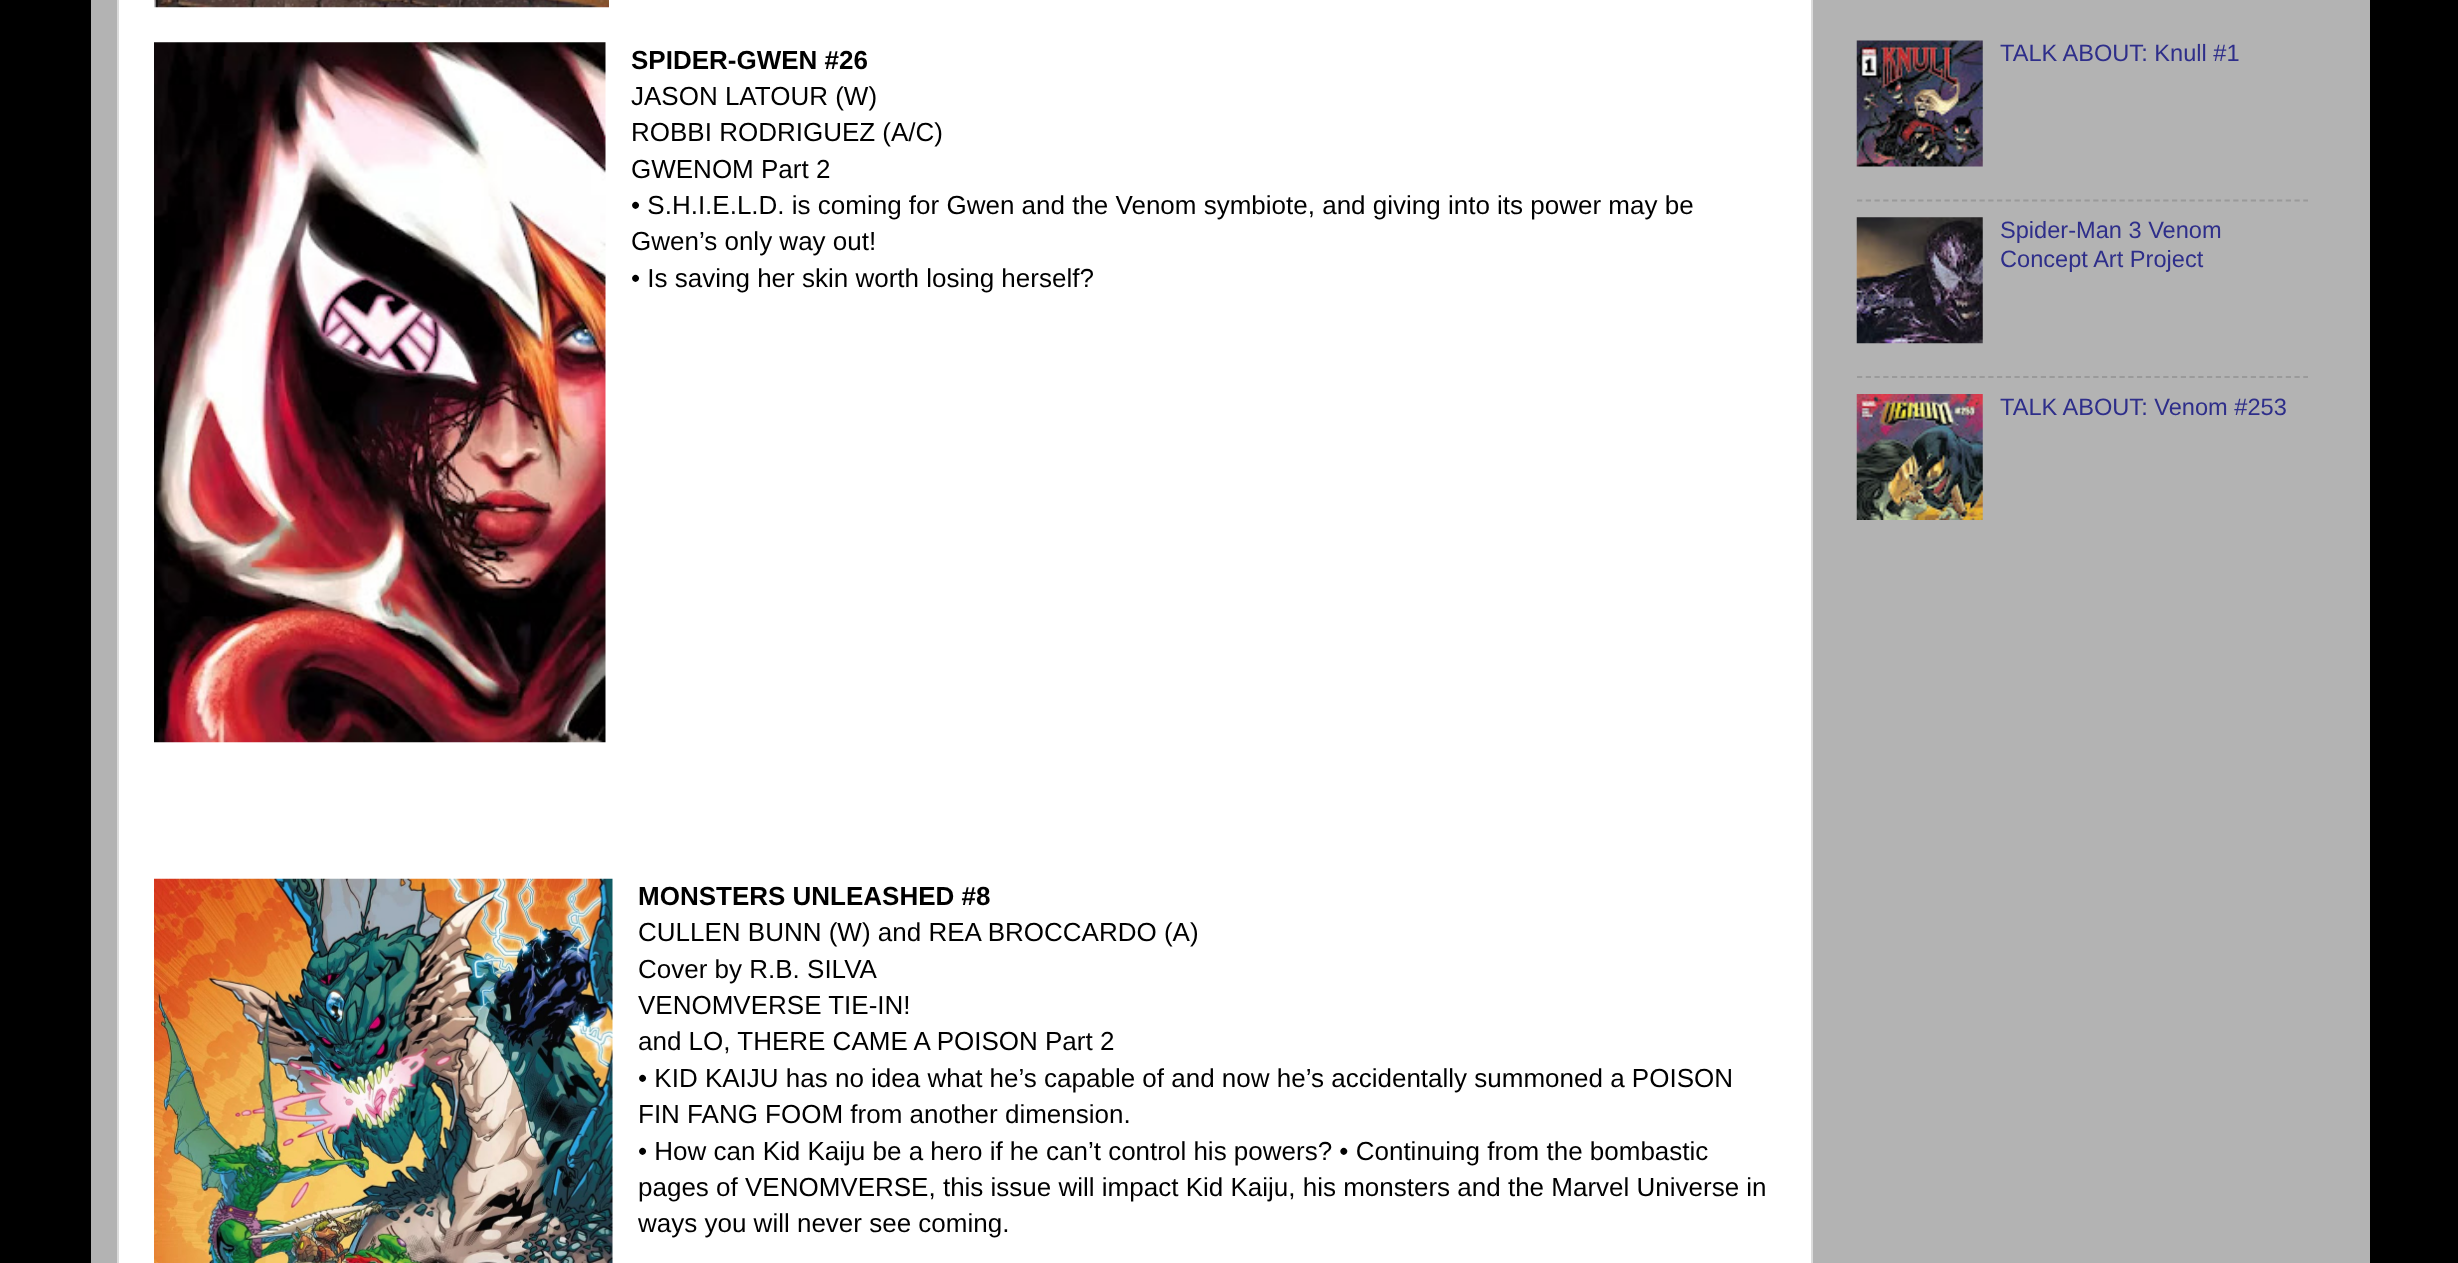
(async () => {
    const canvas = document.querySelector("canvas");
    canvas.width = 2458;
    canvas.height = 1263;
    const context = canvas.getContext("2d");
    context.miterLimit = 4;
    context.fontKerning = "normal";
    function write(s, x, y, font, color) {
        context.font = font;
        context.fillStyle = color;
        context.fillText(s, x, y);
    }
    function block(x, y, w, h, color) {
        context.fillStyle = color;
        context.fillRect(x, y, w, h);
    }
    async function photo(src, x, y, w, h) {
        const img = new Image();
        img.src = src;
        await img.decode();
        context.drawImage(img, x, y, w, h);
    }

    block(0, 0, 2458, 1263, "rgb(0, 0, 0)");
    block(91, 0, 2279, 1263, "rgb(179, 179, 179)");
    context.fillStyle = "rgb(255, 255, 255)";
    context.beginPath();
    context.rect(118, -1, 1694, 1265);
    context.fill();
    context.strokeStyle = "rgb(219, 219, 219)";
    context.lineWidth = 2;
    context.stroke();
    await photo("media/1.png", 154, 0, 455, 8);
    await photo("media/2.png", 154, 42, 452, 701);
    write("SPIDER-GWEN #26", 631, 69, "bold 26px Liberation Sans", "rgb(0, 0, 0)");
    write("JASON LATOUR (W)", 631, 105, "26px Liberation Sans", "rgb(0, 0, 0)");
    write("ROBBI RODRIGUEZ (A/C)", 631, 141, "26px Liberation Sans", "rgb(0, 0, 0)");
    write("GWENOM Part 2", 631, 178, "26px Liberation Sans", "rgb(0, 0, 0)");
    write("• S.H.I.E.L.D. is coming for Gwen and the Venom symbiote, and giving into its power may be", 631, 214, "26px Liberation Sans", "rgb(0, 0, 0)");
    write("Gwen’s only way out!", 631, 250, "26px Liberation Sans", "rgb(0, 0, 0)");
    write("• Is saving her skin worth losing herself?", 631, 287, "26px Liberation Sans", "rgb(0, 0, 0)");
    await photo("media/3.png", 154, 878, 459, 385);
    write("MONSTERS UNLEASHED #8", 638, 905, "bold 26px Liberation Sans", "rgb(0, 0, 0)");
    write("CULLEN BUNN (W) and REA BROCCARDO (A)", 638, 941, "26px Liberation Sans", "rgb(0, 0, 0)");
    write("Cover by R.B. SILVA", 638, 978, "26px Liberation Sans", "rgb(0, 0, 0)");
    write("VENOMVERSE TIE-IN!", 638, 1014, "26px Liberation Sans", "rgb(0, 0, 0)");
    write("and LO, THERE CAME A POISON Part 2", 638, 1050, "26px Liberation Sans", "rgb(0, 0, 0)");
    write("• KID KAIJU has no idea what he’s capable of and now he’s accidentally summoned a POISON", 638, 1087, "26px Liberation Sans", "rgb(0, 0, 0)");
    write("FIN FANG FOOM from another dimension.", 638, 1123, "26px Liberation Sans", "rgb(0, 0, 0)");
    write("• How can Kid Kaiju be a hero if he can’t control his powers? • Continuing from the bombastic", 638, 1160, "26px Liberation Sans", "rgb(0, 0, 0)");
    write("pages of VENOMVERSE, this issue will impact Kid Kaiju, his monsters and the Marvel Universe in", 638, 1196, "26px Liberation Sans", "rgb(0, 0, 0)");
    write("ways you will never see coming.", 638, 1232, "26px Liberation Sans", "rgb(0, 0, 0)");
    await photo("media/4.png", 1856, 40, 127, 127);
    write("TALK ABOUT: Knull #1", 2000, 61, "23.6px Liberation Sans", "rgb(46, 46, 138)");
    context.beginPath();
    context.moveTo(1857, 200.5);
    context.lineTo(2308, 200.5);
    context.strokeStyle = "rgb(154, 154, 154)";
    context.lineWidth = 1.8;
    context.setLineDash([5.25, 3.5]);
    context.stroke();
    await photo("media/5.png", 1856, 217, 127, 127);
    write("Spider-Man 3 Venom", 2000, 238, "23.6px Liberation Sans", "rgb(46, 46, 138)");
    write("Concept Art Project", 2000, 267, "23.6px Liberation Sans", "rgb(46, 46, 138)");
    context.beginPath();
    context.moveTo(1857, 377);
    context.lineTo(2308, 377);
    context.stroke();
    await photo("media/6.png", 1856, 394, 127, 126);
    write("TALK ABOUT: Venom #253", 2000, 415, "23.6px Liberation Sans", "rgb(46, 46, 138)");
})();
